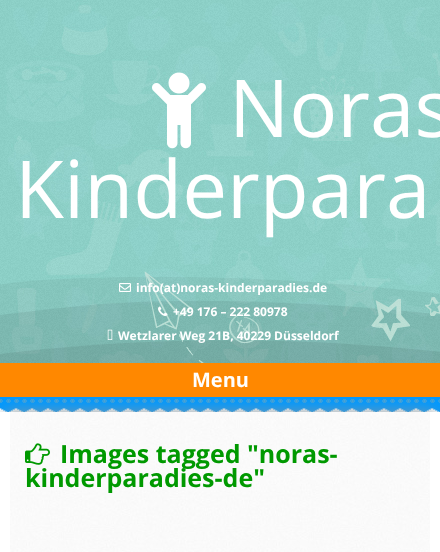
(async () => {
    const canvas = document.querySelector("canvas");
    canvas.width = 440;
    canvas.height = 552;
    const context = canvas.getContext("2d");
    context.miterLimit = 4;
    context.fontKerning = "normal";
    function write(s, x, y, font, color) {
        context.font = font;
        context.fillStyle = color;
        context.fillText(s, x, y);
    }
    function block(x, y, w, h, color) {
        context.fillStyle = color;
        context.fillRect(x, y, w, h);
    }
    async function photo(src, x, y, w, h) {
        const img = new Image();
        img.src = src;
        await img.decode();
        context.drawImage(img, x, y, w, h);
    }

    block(0, 0, 440, 552, "rgb(255, 255, 255)");
    await photo("media/1.png", 0, 0, 440, 363);
    await photo("media/2.png", 0, 271, 440, 92);
    await photo("media/3.png", 152, 72, 54, 77);
    write("Noras", 229, 137, "80px Open Sans", "rgb(255, 255, 255)");
    write("Kinderpara", 15, 218, "80px Open Sans", "rgb(255, 255, 255)");
    await photo("media/4.png", 119, 283, 12, 9);
    write("info(at)noras-kinderparadies.de", 136, 292, "bold 12px Open Sans", "rgb(255, 255, 255)");
    await photo("media/5.png", 158, 306, 10, 10);
    write("+49 176 – 222 80978", 173, 316, "bold 12px Open Sans", "rgb(255, 255, 255)");
    await photo("media/6.png", 107, 329, 6, 11);
    write("Wetzlarer Weg 21B, 40229 Düsseldorf", 118, 340, "bold 12px Open Sans", "rgb(255, 255, 255)");
    block(0, 363, 440, 34, "rgb(255, 136, 0)");
    block(0, 397, 440, 2, "rgb(0, 153, 255)");
    await photo("media/7.png", 0, 399, 440, 13);
    context.fillStyle = "rgb(133, 150, 159)";
    context.filter = "blur(8px)";
    context.beginPath();
    context.roundRect(0, 412, 440, 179, 15);
    context.fill();
    context.filter = "none";
    write("Menu", 192, 387, "bold 20px Open Sans", "rgb(255, 255, 255)");
    await photo("media/8.png", 10, 412, 420, 140);
    context.beginPath();
    context.moveTo(0, 412);
    context.lineTo(440, 412);
    context.lineTo(440, 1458);
    context.bezierCurveTo(440, 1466, 433, 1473, 425, 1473);
    context.lineTo(15, 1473);
    context.bezierCurveTo(7, 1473, 0, 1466, 0, 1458);
    context.closePath();
    context.moveTo(10, 412);
    context.lineTo(430, 412);
    context.lineTo(430, 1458);
    context.bezierCurveTo(430, 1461, 428, 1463, 425, 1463);
    context.lineTo(15, 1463);
    context.bezierCurveTo(12, 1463, 10, 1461, 10, 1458);
    context.closePath();
    context.fill("evenodd");
    await photo("media/9.png", 25, 443, 25, 22);
    write("Images tagged \"noras-", 60, 463, "bold 25px Open Sans", "rgb(0, 153, 0)");
    write("kinderparadies-de\"", 25, 487, "bold 25px Open Sans", "rgb(0, 153, 0)");
})();
